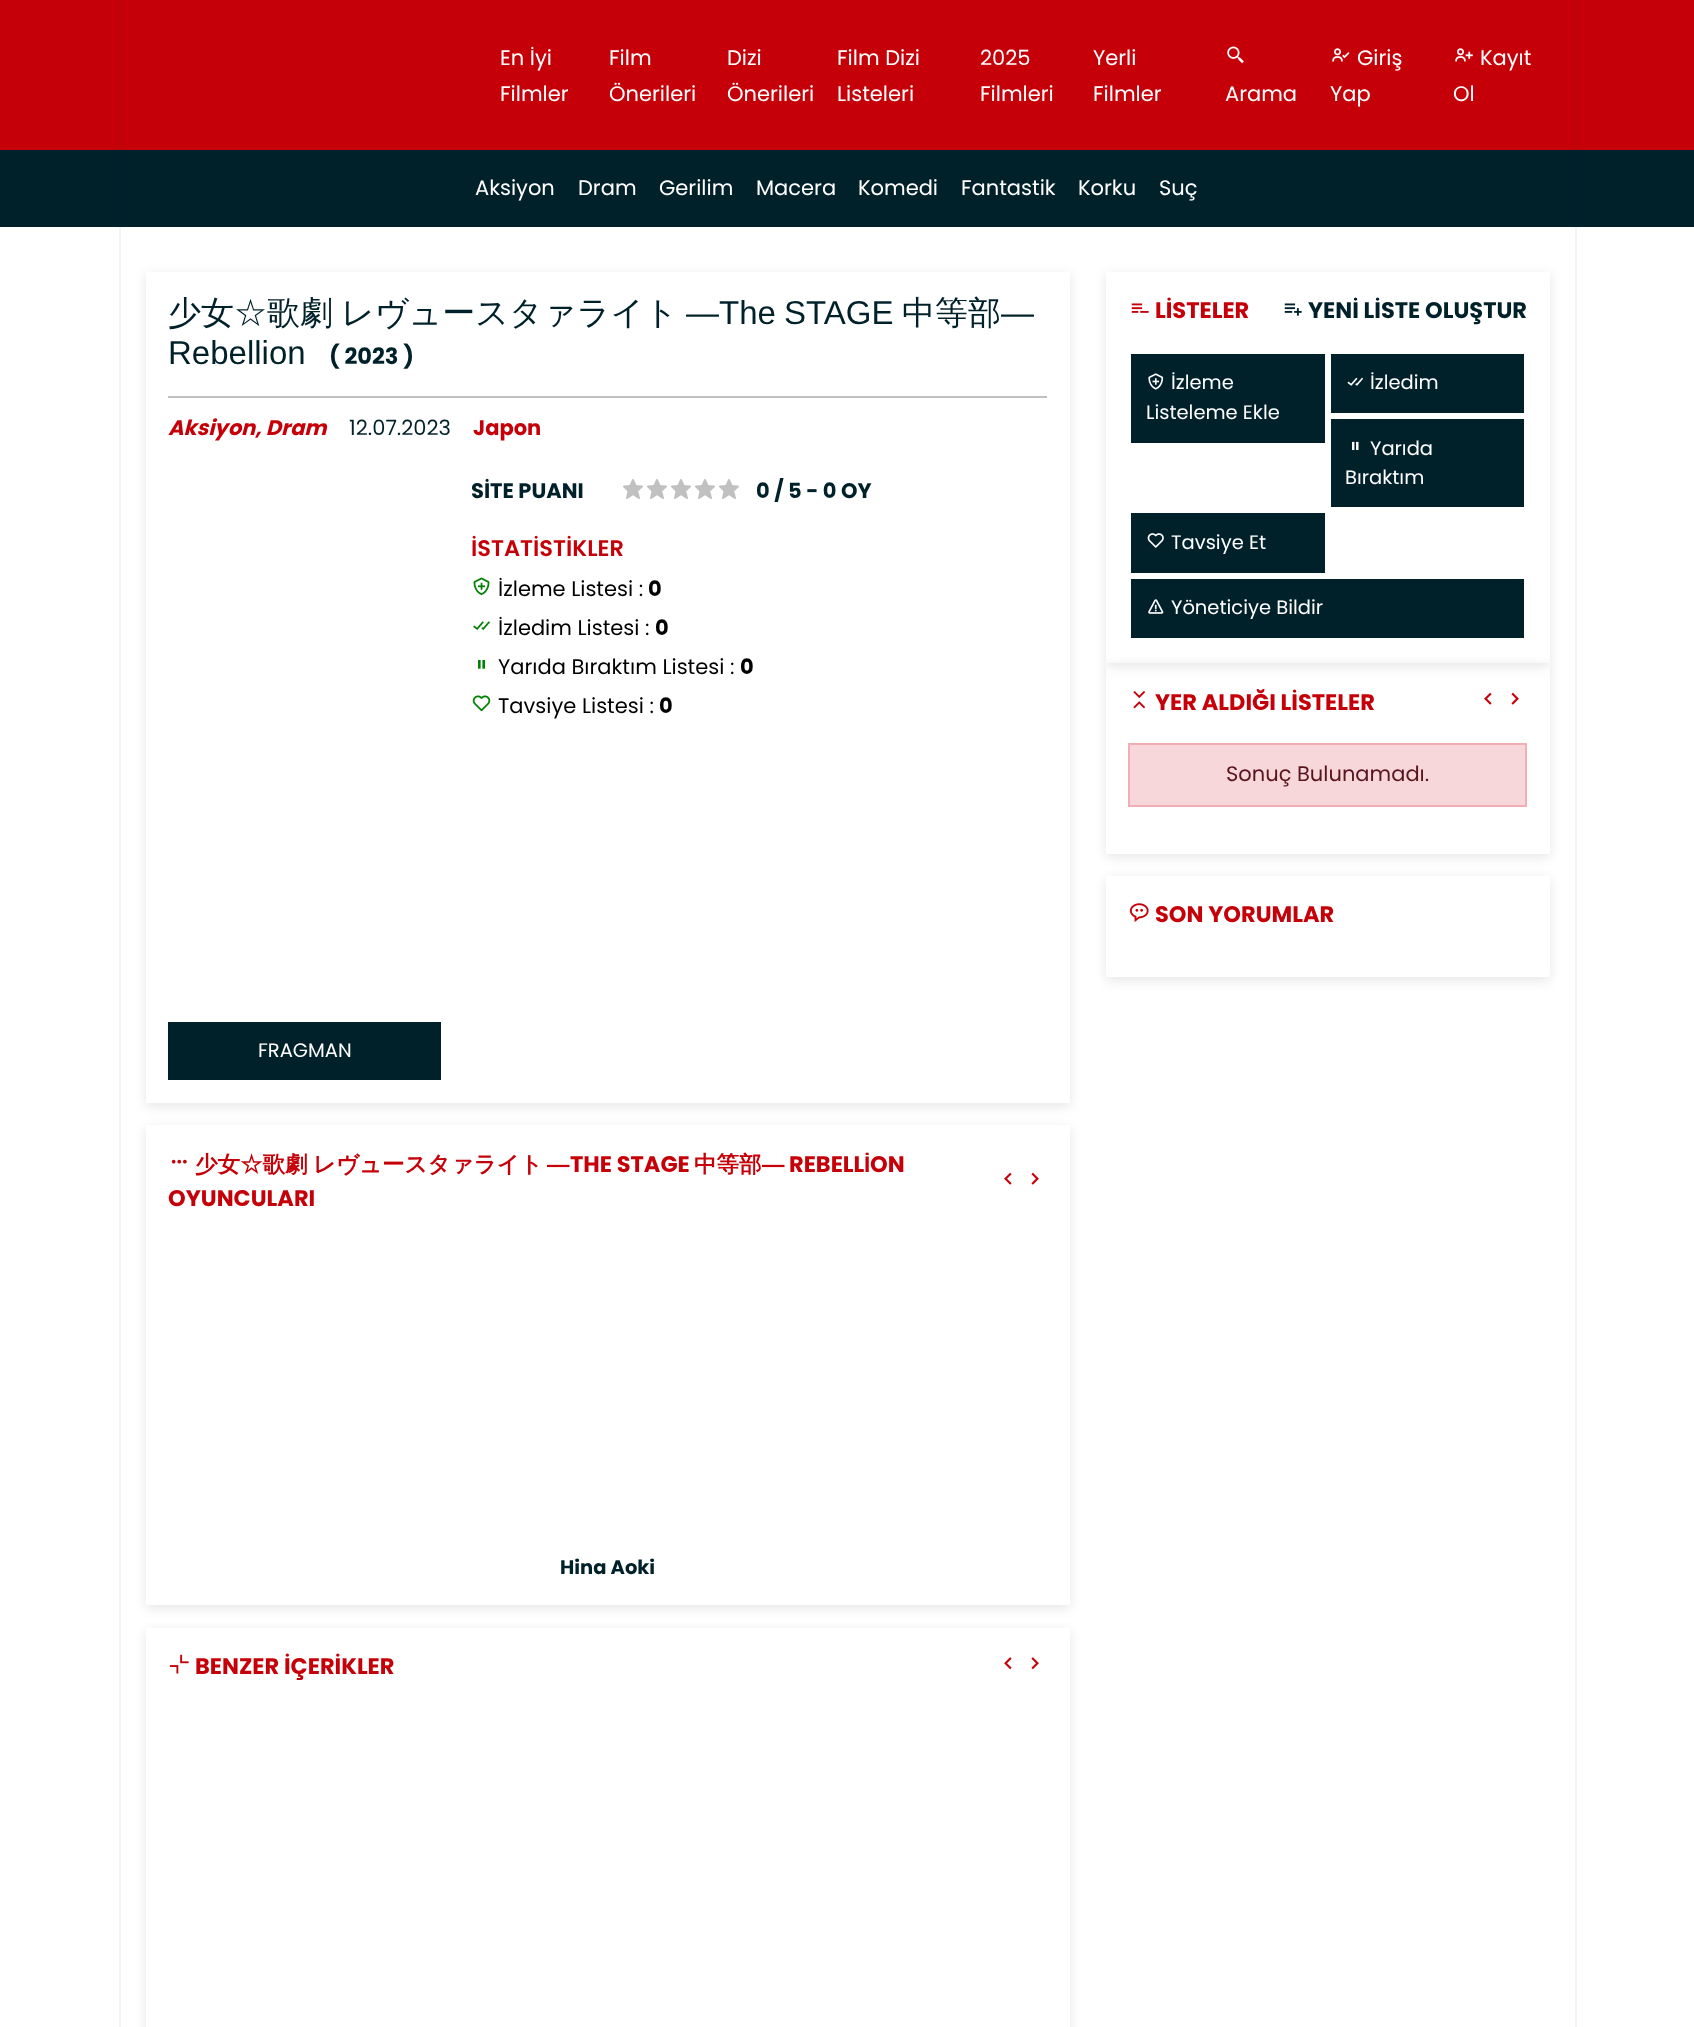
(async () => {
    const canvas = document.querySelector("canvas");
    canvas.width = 1694;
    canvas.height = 2027;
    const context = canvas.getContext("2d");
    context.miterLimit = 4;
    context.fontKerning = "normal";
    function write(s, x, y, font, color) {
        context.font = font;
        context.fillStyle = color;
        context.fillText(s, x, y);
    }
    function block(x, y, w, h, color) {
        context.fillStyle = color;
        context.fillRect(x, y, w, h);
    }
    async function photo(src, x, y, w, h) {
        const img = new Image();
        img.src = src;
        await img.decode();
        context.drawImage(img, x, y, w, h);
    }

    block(0, 0, 1694, 2027, "rgb(255, 255, 255)");
    block(1575, 227, 2, 1800, "rgb(242, 245, 247)");
    block(119, 227, 2, 1800, "rgb(242, 245, 247)");
    block(0, 0, 1694, 150, "rgb(198, 0, 8)");
    block(1575, 0, 2, 150, "rgb(188, 3, 12)");
    block(119, 0, 2, 150, "rgb(188, 3, 12)");
    write("En İyi", 500, 65, "21px Poppins", "rgb(255, 255, 255)");
    write("Filmler", 500, 101, "21px Poppins", "rgb(255, 255, 255)");
    write("Film", 609, 65, "21px Poppins", "rgb(255, 255, 255)");
    write("Önerileri", 609, 101, "21px Poppins", "rgb(255, 255, 255)");
    write("Dizi", 727, 65, "21px Poppins", "rgb(255, 255, 255)");
    write("Önerileri", 727, 101, "21px Poppins", "rgb(255, 255, 255)");
    write("Film Dizi", 837, 65, "21px Poppins", "rgb(255, 255, 255)");
    write("Listeleri", 837, 101, "21px Poppins", "rgb(255, 255, 255)");
    write("2025", 980, 65, "21px Poppins", "rgb(255, 255, 255)");
    write("Filmleri", 980, 101, "21px Poppins", "rgb(255, 255, 255)");
    write("Yerli", 1093, 65, "21px Poppins", "rgb(255, 255, 255)");
    write("Filmler", 1093, 101, "21px Poppins", "rgb(255, 255, 255)");
    await photo("media/1.png", 1227, 46, 17, 18);
    write("Arama", 1225, 101, "21px Poppins", "rgb(255, 255, 255)");
    await photo("media/2.png", 1332, 48, 18, 14);
    write("Giriş", 1357, 65, "21px Poppins", "rgb(255, 255, 255)");
    write("Yap", 1330, 101, "21px Poppins", "rgb(255, 255, 255)");
    await photo("media/3.png", 1455, 48, 18, 14);
    write("Kayıt", 1480, 65, "21px Poppins", "rgb(255, 255, 255)");
    write("Ol", 1453, 101, "21px Poppins", "rgb(255, 255, 255)");
    block(0, 152, 1694, 75, "rgb(0, 33, 42)");
    block(0, 150, 1694, 2, "rgb(0, 34, 45)");
    block(1575, 150, 2, 77, "rgb(0, 34, 45)");
    block(119, 150, 2, 77, "rgb(0, 34, 45)");
    write("Aksiyon", 475, 195, "21px Poppins", "rgb(255, 255, 255)");
    write("Dram", 578, 195, "21px Poppins", "rgb(255, 255, 255)");
    write("Gerilim", 659, 195, "21px Poppins", "rgb(255, 255, 255)");
    write("Macera", 756, 195, "21px Poppins", "rgb(255, 255, 255)");
    write("Komedi", 858, 195, "21px Poppins", "rgb(255, 255, 255)");
    write("Fantastik", 961, 195, "21px Poppins", "rgb(255, 255, 255)");
    write("Korku", 1078, 195, "21px Poppins", "rgb(255, 255, 255)");
    write("Suç", 1159, 195, "21px Poppins", "rgb(255, 255, 255)");
    context.save();
    context.beginPath();
    context.moveTo(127, 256);
    context.lineTo(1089, 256);
    context.lineTo(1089, 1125);
    context.lineTo(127, 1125);
    context.closePath();
    context.moveTo(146, 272);
    context.lineTo(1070, 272);
    context.lineTo(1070, 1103);
    context.lineTo(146, 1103);
    context.closePath();
    context.clip("evenodd");
    context.fillStyle = "rgba(0, 0, 0, 0.1)";
    context.filter = "blur(6px)";
    context.beginPath();
    context.rect(146, 275, 924, 831);
    context.fill();
    context.filter = "none";
    context.restore();
    block(168, 396, 879, 2, "rgb(192, 192, 192)");
    write("少女☆歌劇", 168, 324, "500 33px WenQuanYi Zen Hei", "rgb(0, 33, 42)");
    write("レヴュースタァライト", 341, 324, "500 33px WenQuanYi Zen Hei", "rgb(0, 33, 42)");
    write("―The", 686, 324, "33px Liberation Sans", "rgb(0, 33, 42)");
    write("STAGE", 784, 324, "33px Liberation Sans", "rgb(0, 33, 42)");
    write("中等部", 902, 324, "500 33px WenQuanYi Zen Hei", "rgb(0, 33, 42)");
    write("―", 1001, 324, "33px Liberation Sans", "rgb(0, 33, 42)");
    write("Rebellion", 168, 364, "33px Liberation Sans", "rgb(0, 33, 42)");
    write("( 2023 )", 329, 364, "bold 22.5px Poppins", "rgb(0, 33, 42)");
    write("Aksiyon, Dram", 168, 435, "italic bold 21px Poppins", "rgb(198, 0, 8)");
    write("12.07.2023", 349, 435, "21px Poppins", "rgb(0, 33, 42)");
    write("Japon", 473, 435, "bold 21px Poppins", "rgb(198, 0, 8)");
    write("SİTE PUANI", 471, 498, "bold 21px Poppins", "rgb(0, 33, 42)");
    await photo("media/4.png", 623, 479, 20, 20);
    await photo("media/4.png", 647, 479, 20, 20);
    await photo("media/4.png", 671, 479, 20, 20);
    await photo("media/4.png", 695, 479, 20, 20);
    await photo("media/4.png", 719, 479, 20, 20);
    write("0 / 5 - 0 OY", 756, 498, "bold 21px Poppins", "rgb(0, 33, 42)");
    write("İSTATİSTİKLER", 471, 556, "600 22.5px Poppins", "rgb(198, 0, 8)");
    await photo("media/5.png", 473, 577, 17, 19);
    write("İzleme Listesi :", 498, 596, "21px Poppins", "rgb(0, 0, 0)");
    write("0", 648, 596, "bold 21px Poppins", "rgb(0, 0, 0)");
    await photo("media/6.png", 473, 621, 17, 9);
    write("İzledim Listesi :", 498, 635, "21px Poppins", "rgb(0, 0, 0)");
    write("0", 655, 635, "bold 21px Poppins", "rgb(0, 0, 0)");
    await photo("media/7.png", 478, 659, 7, 10);
    write("Yarıda Bıraktım Listesi :", 498, 674, "21px Poppins", "rgb(0, 0, 0)");
    write("0", 740, 674, "bold 21px Poppins", "rgb(0, 0, 0)");
    await photo("media/8.png", 472, 695, 19, 17);
    write("Tavsiye Listesi :", 498, 713, "21px Poppins", "rgb(0, 0, 0)");
    write("0", 659, 713, "bold 21px Poppins", "rgb(0, 0, 0)");
    block(168, 1022, 273, 58, "rgb(0, 33, 42)");
    write("FRAGMAN", 258, 1057, "19.5px Poppins", "rgb(255, 255, 255)");
    context.save();
    context.beginPath();
    context.moveTo(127, 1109);
    context.lineTo(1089, 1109);
    context.lineTo(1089, 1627);
    context.lineTo(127, 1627);
    context.closePath();
    context.moveTo(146, 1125);
    context.lineTo(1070, 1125);
    context.lineTo(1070, 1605);
    context.lineTo(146, 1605);
    context.closePath();
    context.clip("evenodd");
    context.fillStyle = "rgba(0, 0, 0, 0.1)";
    context.filter = "blur(6px)";
    context.beginPath();
    context.rect(146, 1128, 924, 480);
    context.fill();
    context.filter = "none";
    context.restore();
    await photo("media/9.png", 171, 1159, 16, 5);
    write("少女☆歌劇", 195, 1172, "bold 22.5px WenQuanYi Zen Hei", "rgb(198, 0, 8)");
    write("レヴュースタァライト", 313, 1172, "bold 22.5px WenQuanYi Zen Hei", "rgb(198, 0, 8)");
    write("THE STAGE", 570, 1172, "bold 22.5px Poppins", "rgb(198, 0, 8)");
    write("中等部", 694, 1172, "bold 22.5px WenQuanYi Zen Hei", "rgb(198, 0, 8)");
    write("REBELL", 789, 1172, "bold 22.5px Poppins", "rgb(198, 0, 8)");
    write("İ", 864, 1172, "bold 22.5px Liberation Sans", "rgb(198, 0, 8)");
    write("ON", 870, 1172, "bold 22.5px Poppins", "rgb(198, 0, 8)");
    write("―", 547, 1172, "bold 22.5px Liberation Sans", "rgb(198, 0, 8)");
    write("―", 762, 1172, "bold 22.5px Liberation Sans", "rgb(198, 0, 8)");
    await photo("media/10.png", 1004, 1172, 8, 13);
    await photo("media/11.png", 1031, 1172, 8, 13);
    write("OYUNCULARI", 168, 1206, "bold 22.5px Poppins", "rgb(198, 0, 8)");
    write("Hina Aoki", 560, 1574, "bold 19.5px Poppins", "rgb(0, 33, 42)");
    context.save();
    context.beginPath();
    context.moveTo(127, 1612);
    context.lineTo(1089, 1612);
    context.lineTo(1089, 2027);
    context.lineTo(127, 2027);
    context.closePath();
    context.moveTo(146, 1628);
    context.lineTo(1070, 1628);
    context.lineTo(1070, 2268);
    context.lineTo(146, 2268);
    context.closePath();
    context.clip("evenodd");
    context.fillStyle = "rgba(0, 0, 0, 0.1)";
    context.filter = "blur(6px)";
    context.beginPath();
    context.rect(146, 1631, 924, 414);
    context.fill();
    context.filter = "none";
    context.restore();
    await photo("media/12.png", 169, 1654, 20, 20);
    write("BENZER İÇERİKLER", 195, 1674, "bold 22.5px Poppins", "rgb(198, 0, 8)");
    await photo("media/13.png", 1004, 1657, 8, 13);
    await photo("media/14.png", 1031, 1657, 8, 13);
    context.save();
    context.beginPath();
    context.moveTo(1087, 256);
    context.lineTo(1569, 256);
    context.lineTo(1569, 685);
    context.lineTo(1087, 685);
    context.closePath();
    context.moveTo(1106, 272);
    context.lineTo(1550, 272);
    context.lineTo(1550, 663);
    context.lineTo(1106, 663);
    context.closePath();
    context.clip("evenodd");
    context.fillStyle = "rgba(0, 0, 0, 0.1)";
    context.filter = "blur(6px)";
    context.beginPath();
    context.rect(1106, 275, 444, 391);
    context.fill();
    context.filter = "none";
    context.restore();
    await photo("media/15.png", 1131, 303, 18, 10);
    write("LİSTELER", 1155, 318, "bold 22.5px Poppins", "rgb(198, 0, 8)");
    await photo("media/16.png", 1284, 303, 18, 13);
    write("YENİ LİSTE OLUŞTUR", 1308, 318, "bold 22.5px Poppins", "rgb(0, 33, 42)");
    block(1131, 354, 194, 89, "rgb(0, 33, 42)");
    await photo("media/17.png", 1148, 373, 16, 17);
    write("İzleme", 1171, 389, "19.5px Poppins", "rgb(255, 255, 255)");
    write("Listeleme Ekle", 1146, 419, "19.5px Poppins", "rgb(255, 255, 255)");
    block(1331, 354, 193, 59, "rgb(0, 33, 42)");
    await photo("media/18.png", 1347, 377, 17, 9);
    write("İzledim", 1370, 389, "19.5px Poppins", "rgb(255, 255, 255)");
    block(1331, 419, 193, 88, "rgb(0, 33, 42)");
    await photo("media/19.png", 1352, 441, 7, 10);
    write("Yarıda", 1370, 455, "19.5px Poppins", "rgb(255, 255, 255)");
    write("Bıraktım", 1345, 484, "19.5px Poppins", "rgb(255, 255, 255)");
    block(1131, 513, 194, 60, "rgb(0, 33, 42)");
    await photo("media/20.png", 1147, 533, 17, 15);
    write("Tavsiye Et", 1171, 549, "19.5px Poppins", "rgb(255, 255, 255)");
    block(1131, 579, 393, 59, "rgb(0, 33, 42)");
    await photo("media/21.png", 1148, 599, 16, 15);
    write("Yöneticiye Bildir", 1171, 614, "19.5px Poppins", "rgb(255, 255, 255)");
    context.save();
    context.beginPath();
    context.moveTo(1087, 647);
    context.lineTo(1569, 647);
    context.lineTo(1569, 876);
    context.lineTo(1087, 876);
    context.closePath();
    context.moveTo(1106, 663);
    context.lineTo(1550, 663);
    context.lineTo(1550, 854);
    context.lineTo(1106, 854);
    context.closePath();
    context.clip("evenodd");
    context.fillStyle = "rgba(0, 0, 0, 0.1)";
    context.filter = "blur(6px)";
    context.beginPath();
    context.rect(1106, 666, 444, 191);
    context.fill();
    context.filter = "none";
    context.restore();
    await photo("media/22.png", 1133, 691, 13, 18);
    write("YER ALDIĞI LİSTELER", 1155, 710, "bold 22.5px Poppins", "rgb(198, 0, 8)");
    await photo("media/10.png", 1484, 692, 8, 13);
    await photo("media/11.png", 1511, 692, 8, 13);
    context.fillStyle = "rgb(248, 215, 218)";
    context.beginPath();
    context.rect(1129, 744, 397, 62);
    context.fill();
    context.strokeStyle = "rgb(241, 174, 181)";
    context.lineWidth = 2;
    context.stroke();
    write("Sonuç Bulunamadı.", 1226, 781, "21px Poppins", "rgb(88, 21, 28)");
    context.save();
    context.beginPath();
    context.moveTo(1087, 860);
    context.lineTo(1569, 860);
    context.lineTo(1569, 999);
    context.lineTo(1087, 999);
    context.closePath();
    context.moveTo(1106, 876);
    context.lineTo(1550, 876);
    context.lineTo(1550, 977);
    context.lineTo(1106, 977);
    context.closePath();
    context.clip("evenodd");
    context.fillStyle = "rgba(0, 0, 0, 0.1)";
    context.filter = "blur(6px)";
    context.beginPath();
    context.rect(1106, 879, 444, 101);
    context.fill();
    context.filter = "none";
    context.restore();
    await photo("media/23.png", 1129, 903, 20, 19);
    write("SON YORUMLAR", 1155, 922, "bold 22.5px Poppins", "rgb(198, 0, 8)");
})();
